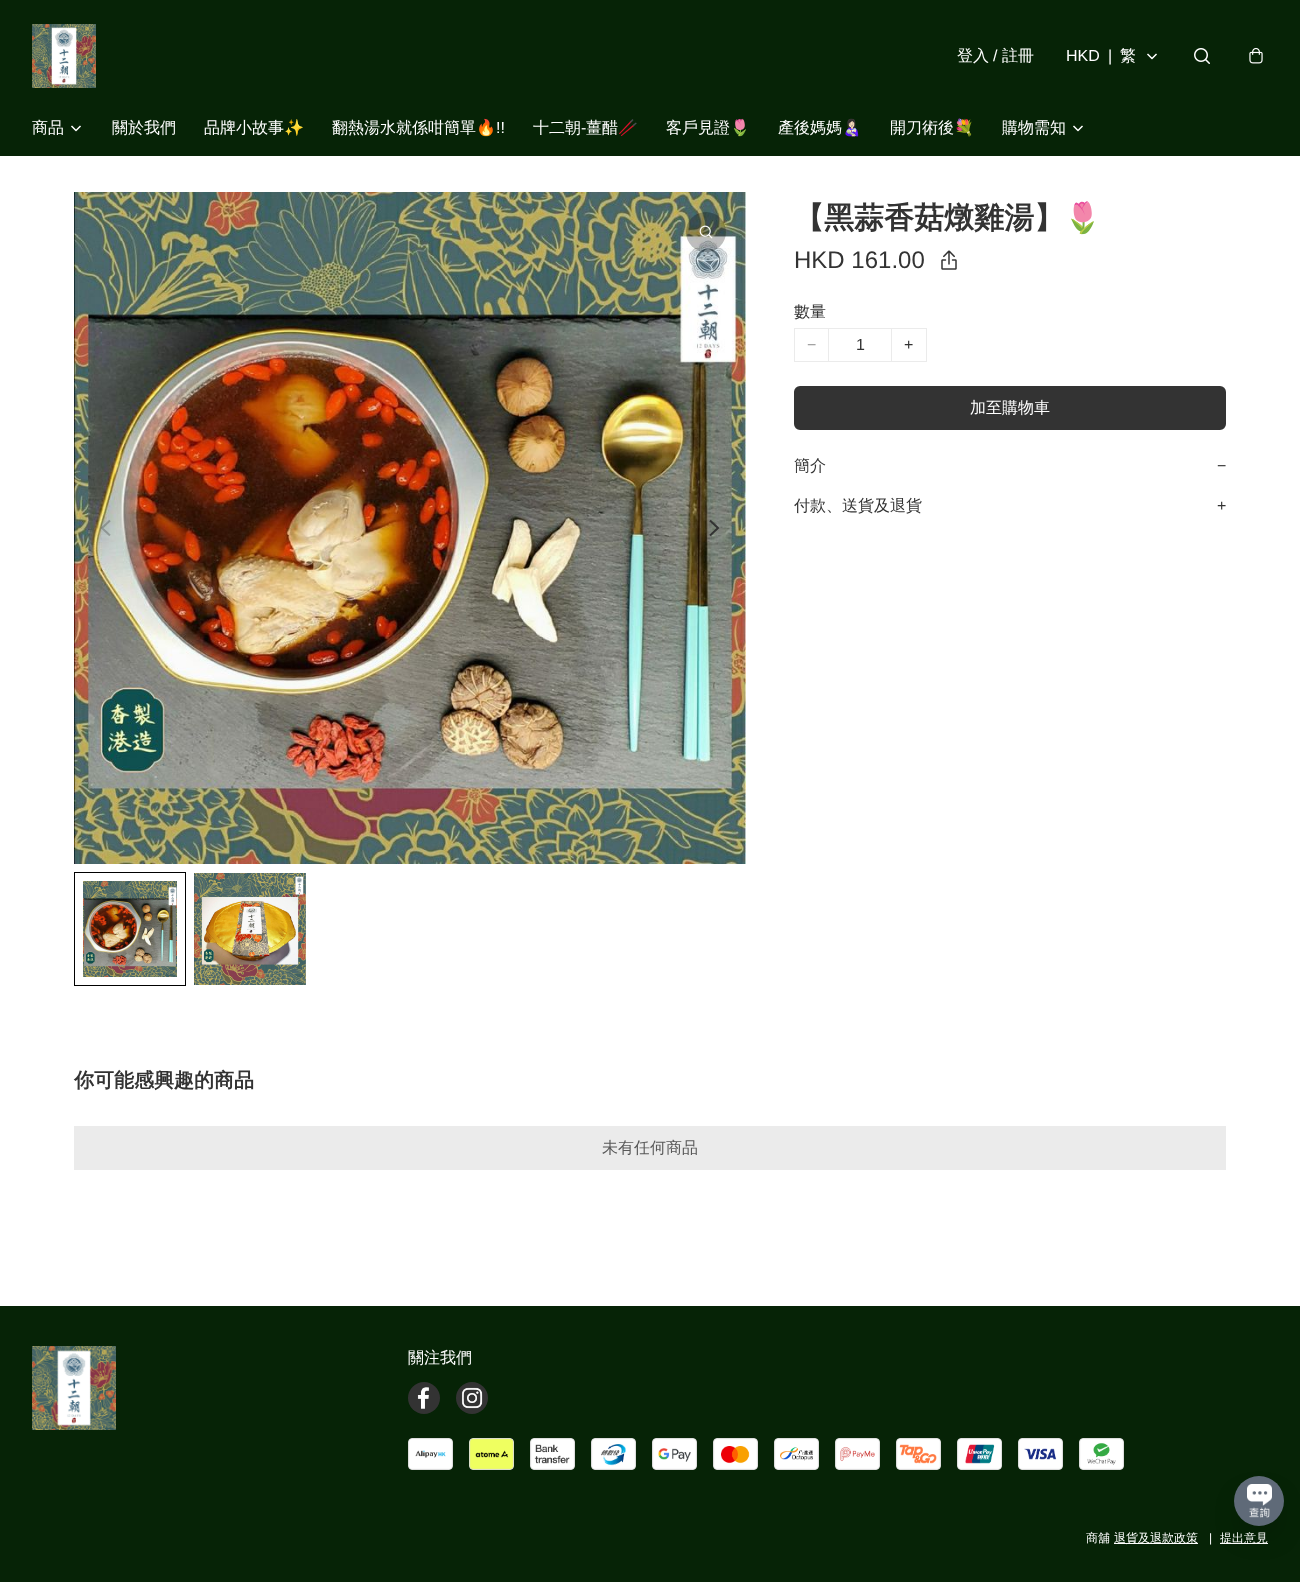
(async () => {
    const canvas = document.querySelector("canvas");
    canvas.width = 1300;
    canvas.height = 1582;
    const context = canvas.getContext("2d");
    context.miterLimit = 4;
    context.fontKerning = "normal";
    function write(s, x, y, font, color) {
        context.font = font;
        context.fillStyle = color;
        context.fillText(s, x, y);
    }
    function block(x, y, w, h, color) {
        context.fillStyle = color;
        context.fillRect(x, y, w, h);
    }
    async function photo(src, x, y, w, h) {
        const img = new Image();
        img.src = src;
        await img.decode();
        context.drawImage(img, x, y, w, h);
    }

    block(0, 0, 1300, 1582, "rgb(255, 255, 255)");
    block(0, 0, 1300, 156, "rgb(6, 35, 6)");
    await photo("media/1.png", 32, 24, 64, 64);
    write("登入", 957, 61, "500 16px WenQuanYi Zen Hei", "rgb(255, 255, 255)");
    write("/", 993, 61, "16px Liberation Sans", "rgb(255, 255, 255)");
    write("註冊", 1002, 61, "500 16px WenQuanYi Zen Hei", "rgb(255, 255, 255)");
    write("HKD", 1066, 61, "16px Liberation Sans", "rgb(255, 255, 255)");
    write("|", 1108, 61, "16px Liberation Sans", "rgb(255, 255, 255)");
    write("繁", 1120, 61, "500 16px WenQuanYi Zen Hei", "rgb(255, 255, 255)");
    context.beginPath();
    context.moveTo(1148, 54.5);
    context.lineTo(1152, 58.5);
    context.lineTo(1156, 54.5);
    context.strokeStyle = "rgb(255, 255, 255)";
    context.lineWidth = 1.5;
    context.lineCap = "square";
    context.lineJoin = "round";
    context.stroke();
    await photo("media/2.png", 1194, 48, 16, 16);
    await photo("media/3.png", 1249, 47, 14, 17);
    write("商品", 32, 133, "500 16px WenQuanYi Zen Hei", "rgb(255, 255, 255)");
    context.beginPath();
    context.moveTo(72, 126.5);
    context.lineTo(76, 130.5);
    context.lineTo(80, 126.5);
    context.stroke();
    write("關於我們", 112, 133, "500 16px WenQuanYi Zen Hei", "rgb(255, 255, 255)");
    write("品牌小故事", 204, 133, "500 16px WenQuanYi Zen Hei", "rgb(255, 255, 255)");
    write("✨", 284, 133, "16px Noto Color Emoji", "rgb(255, 255, 255)");
    write("翻熱湯水就係咁簡單", 332, 133, "500 16px WenQuanYi Zen Hei", "rgb(255, 255, 255)");
    write("🔥", 476, 133, "16px Noto Color Emoji", "rgb(255, 255, 255)");
    write("!!", 496, 133, "16px Liberation Sans", "rgb(255, 255, 255)");
    write("十二朝", 533, 133, "500 16px WenQuanYi Zen Hei", "rgb(255, 255, 255)");
    write("-", 581, 133, "16px Liberation Sans", "rgb(255, 255, 255)");
    write("薑醋", 586, 133, "500 16px WenQuanYi Zen Hei", "rgb(255, 255, 255)");
    write("🥢", 618, 133, "16px Noto Color Emoji", "rgb(255, 255, 255)");
    write("客戶見證", 666, 133, "500 16px WenQuanYi Zen Hei", "rgb(255, 255, 255)");
    write("🌷", 730, 133, "16px Noto Color Emoji", "rgb(255, 255, 255)");
    write("產後媽媽", 778, 133, "500 16px WenQuanYi Zen Hei", "rgb(255, 255, 255)");
    write("👩🏻‍🍼", 842, 133, "16px Noto Color Emoji", "rgb(255, 255, 255)");
    write("開刀術後", 890, 133, "500 16px WenQuanYi Zen Hei", "rgb(255, 255, 255)");
    write("💐", 954, 133, "16px Noto Color Emoji", "rgb(255, 255, 255)");
    write("購物需知", 1002, 133, "500 16px WenQuanYi Zen Hei", "rgb(255, 255, 255)");
    context.beginPath();
    context.moveTo(1074, 126.5);
    context.lineTo(1078, 130.5);
    context.lineTo(1082, 126.5);
    context.stroke();
    await photo("media/4.png", 74, 192, 672, 672);
    context.fillStyle = "rgba(0, 0, 0, 0.25)";
    context.beginPath();
    context.arc(706, 232, 20, 0, Math.PI * 2);
    context.fill();
    await photo("media/5.png", 699, 225, 14, 14);
    context.beginPath();
    context.moveTo(110, 520.5);
    context.lineTo(102, 528);
    context.lineTo(110, 535.5);
    context.strokeStyle = "rgba(51, 51, 51, 0.3)";
    context.lineWidth = 2;
    context.lineCap = "butt";
    context.lineJoin = "miter";
    context.stroke();
    context.beginPath();
    context.moveTo(710, 520.5);
    context.lineTo(718, 528);
    context.lineTo(710, 535.5);
    context.strokeStyle = "rgb(51, 51, 51)";
    context.stroke();
    context.strokeStyle = "rgb(0, 0, 0)";
    context.lineWidth = 1;
    context.strokeRect(74.5, 872.5, 111, 113);
    await photo("media/6.png", 83, 881, 94, 96);
    await photo("media/7.png", 194, 873, 112, 112);
    write("【黑蒜香菇燉雞湯】", 794, 228, "bold 30px WenQuanYi Zen Hei", "rgb(51, 51, 51)");
    write("🌷", 1064, 228, "bold 30px Noto Color Emoji", "rgb(51, 51, 51)");
    write("HKD 161.00", 794, 268, "24px Liberation Sans", "rgb(51, 51, 51)");
    await photo("media/8.png", 941, 250, 16, 20);
    write("數量", 794, 317, "500 16px WenQuanYi Zen Hei", "rgb(51, 51, 51)");
    context.strokeStyle = "rgb(235, 235, 235)";
    context.strokeRect(794.5, 328.5, 132, 33);
    write("−", 807, 350, "16px Liberation Sans", "rgb(153, 153, 153)");
    block(891, 329, 1, 32, "rgb(235, 235, 235)");
    block(828, 329, 1, 32, "rgb(235, 235, 235)");
    write("1", 856, 350, "16px Liberation Sans", "rgb(51, 51, 51)");
    write("+", 904, 350, "16px Liberation Sans", "rgb(51, 51, 51)");
    context.beginPath();
    context.roundRect(795, 387, 430, 42, 5);
    context.fill();
    context.strokeStyle = "rgb(51, 51, 51)";
    context.lineWidth = 2;
    context.stroke();
    write("加至購物車", 970, 413, "500 16px WenQuanYi Zen Hei", "rgb(255, 255, 255)");
    write("簡介", 794, 471, "500 16px WenQuanYi Zen Hei", "rgb(51, 51, 51)");
    write("−", 1217, 471, "16px Liberation Sans", "rgb(51, 51, 51)");
    write("付款、送貨及退貨", 794, 511, "500 16px WenQuanYi Zen Hei", "rgb(51, 51, 51)");
    write("+", 1217, 511, "16px Liberation Sans", "rgb(51, 51, 51)");
    write("你可能感興趣的商品", 74, 1087, "bold 20px WenQuanYi Zen Hei", "rgb(51, 51, 51)");
    block(74, 1126, 1152, 44, "rgb(235, 235, 235)");
    write("未有任何商品", 602, 1153, "500 16px WenQuanYi Zen Hei", "rgb(88, 88, 88)");
    block(0, 1306, 1300, 276, "rgb(6, 35, 6)");
    await photo("media/9.png", 32, 1346, 84, 84);
    write("關注我們", 408, 1363, "500 16px WenQuanYi Zen Hei", "rgb(255, 255, 255)");
    context.fillStyle = "rgb(51, 51, 51)";
    context.beginPath();
    context.arc(424, 1398, 16, 0, Math.PI * 2);
    context.fill();
    await photo("media/10.png", 417, 1387, 12, 22);
    context.beginPath();
    context.arc(472, 1398, 16, 0, Math.PI * 2);
    context.fill();
    await photo("media/11.png", 461, 1387, 22, 22);
    await photo("media/12.png", 408, 1438, 45, 32);
    await photo("media/13.png", 469, 1438, 45, 32);
    await photo("media/14.png", 530, 1438, 45, 32);
    await photo("media/15.png", 591, 1438, 45, 32);
    await photo("media/16.png", 652, 1438, 45, 32);
    await photo("media/17.png", 713, 1438, 45, 32);
    await photo("media/18.png", 774, 1438, 45, 32);
    await photo("media/19.png", 835, 1438, 45, 32);
    await photo("media/20.png", 896, 1438, 45, 32);
    await photo("media/21.png", 957, 1438, 45, 32);
    await photo("media/22.png", 1018, 1438, 45, 32);
    await photo("media/23.png", 1079, 1438, 45, 32);
    write("商舖", 1086, 1542, "500 12px WenQuanYi Zen Hei", "rgb(255, 255, 255)");
    block(1114, 1543, 84, 1, "rgb(255, 255, 255)");
    write("退貨及退款政策", 1114, 1542, "500 12px WenQuanYi Zen Hei", "rgb(255, 255, 255)");
    write("|", 1209, 1542, "12px Liberation Sans", "rgb(255, 255, 255)");
    block(1220, 1543, 48, 1, "rgb(255, 255, 255)");
    write("提出意見", 1220, 1542, "500 12px WenQuanYi Zen Hei", "rgb(255, 255, 255)");
    context.fillStyle = "rgba(0, 0, 0, 0.3)";
    context.filter = "blur(15px)";
    context.beginPath();
    context.roundRect(1244, 1501, 30, 30, 15);
    context.fill();
    context.filter = "none";
    context.fillStyle = "rgb(95, 106, 120)";
    context.beginPath();
    context.arc(1259, 1501, 25, 0, Math.PI * 2);
    context.fill();
    await photo("media/24.png", 1247, 1484, 25, 34);
})();
